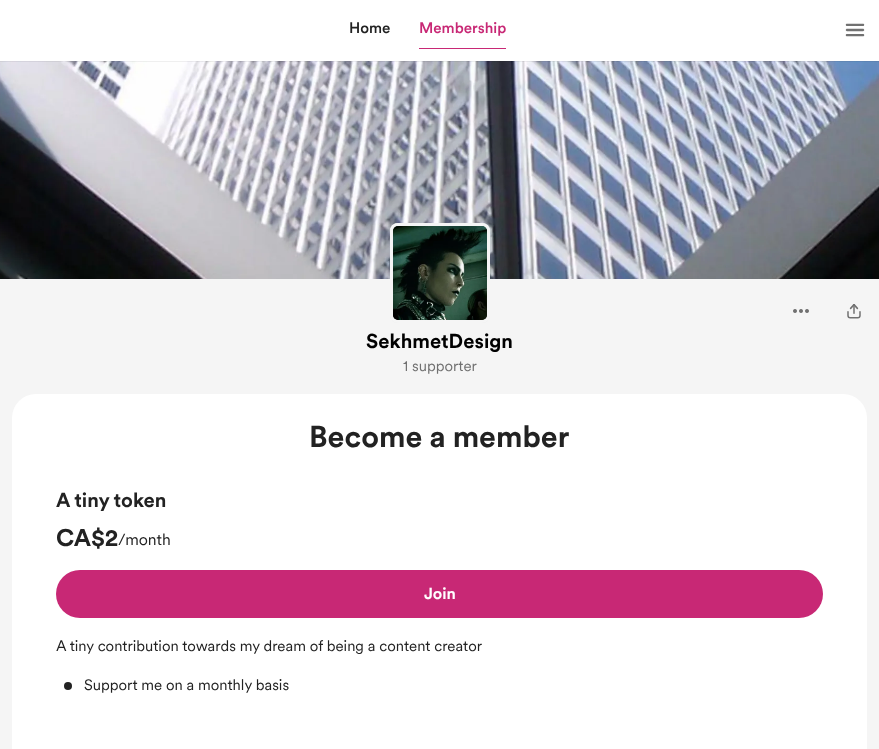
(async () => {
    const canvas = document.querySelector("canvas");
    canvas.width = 879;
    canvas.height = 749;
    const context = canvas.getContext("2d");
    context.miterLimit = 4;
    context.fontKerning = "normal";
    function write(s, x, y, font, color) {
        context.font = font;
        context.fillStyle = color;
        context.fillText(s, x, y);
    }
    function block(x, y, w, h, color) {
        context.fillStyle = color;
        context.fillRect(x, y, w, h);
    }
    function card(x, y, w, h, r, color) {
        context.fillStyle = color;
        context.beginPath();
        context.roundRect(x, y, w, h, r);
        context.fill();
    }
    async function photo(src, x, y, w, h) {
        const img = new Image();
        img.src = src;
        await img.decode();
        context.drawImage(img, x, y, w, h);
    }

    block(0, 0, 879, 749, "rgb(255, 255, 255)");
    await photo("media/2.png", 0, 61, 879, 218);
    context.save();
    context.beginPath();
    context.rect(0, 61, 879, 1);
    context.clip();
    context.fillStyle = "rgba(0, 0, 0, 0.06)";
    context.filter = "blur(0.5px)";
    context.beginPath();
    context.rect(0, 1, 879, 61);
    context.fill();
    context.filter = "none";
    context.restore();
    write("Home", 349, 33, "500 15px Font", "rgb(34, 34, 34)");
    write("Membership", 419, 33, "500 15px Font", "rgb(200, 40, 117)");
    block(419, 48, 87, 1, "rgb(200, 40, 117)");
    await photo("media/1.png", 845, 23, 20, 14);
    block(0, 279, 879, 470, "rgb(245, 245, 245)");
    await photo("media/3.png", 793, 309, 16, 4);
    await photo("media/4.png", 847, 304, 14, 15);
    await photo("media/5.png", 390, 223, 100, 100);
    context.beginPath();
    context.roundRect(391.5, 224.5, 97, 97, 6.5);
    context.strokeStyle = "rgb(245, 245, 245)";
    context.lineWidth = 3;
    context.stroke();
    await photo("media/6.png", 393, 226, 94, 94);
    write("SekhmetDesign", 366, 348, "bold 20px Font", "rgb(0, 0, 0)");
    write("1 supporter", 403, 371, "15px Font", "rgb(113, 113, 113)");
    card(12, 394, 855, 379, 24, "rgb(255, 255, 255)");
    write("Become a member", 309, 447, "bold 30px Font", "rgb(34, 34, 34)");
    write("A tiny token", 56, 507, "bold 20px Font", "rgb(34, 34, 34)");
    write("CA$2", 56, 546, "bold 24px Font", "rgb(34, 34, 34)");
    write("/month", 118, 545, "16px Font", "rgb(34, 34, 34)");
    card(56, 570, 767, 48, 24, "rgb(200, 40, 117)");
    write("Join", 424, 599, "bold 16px Font", "rgb(255, 255, 255)");
    write("A tiny contribution towards my dream of being a content creator", 56, 651, "15px Font", "rgb(34, 34, 34)");
    context.beginPath();
    context.arc(68, 686, 4, 0, Math.PI * 2);
    context.fill();
    write("Support me on a monthly basis", 84, 690, "15px Font", "rgb(34, 34, 34)");
})();
